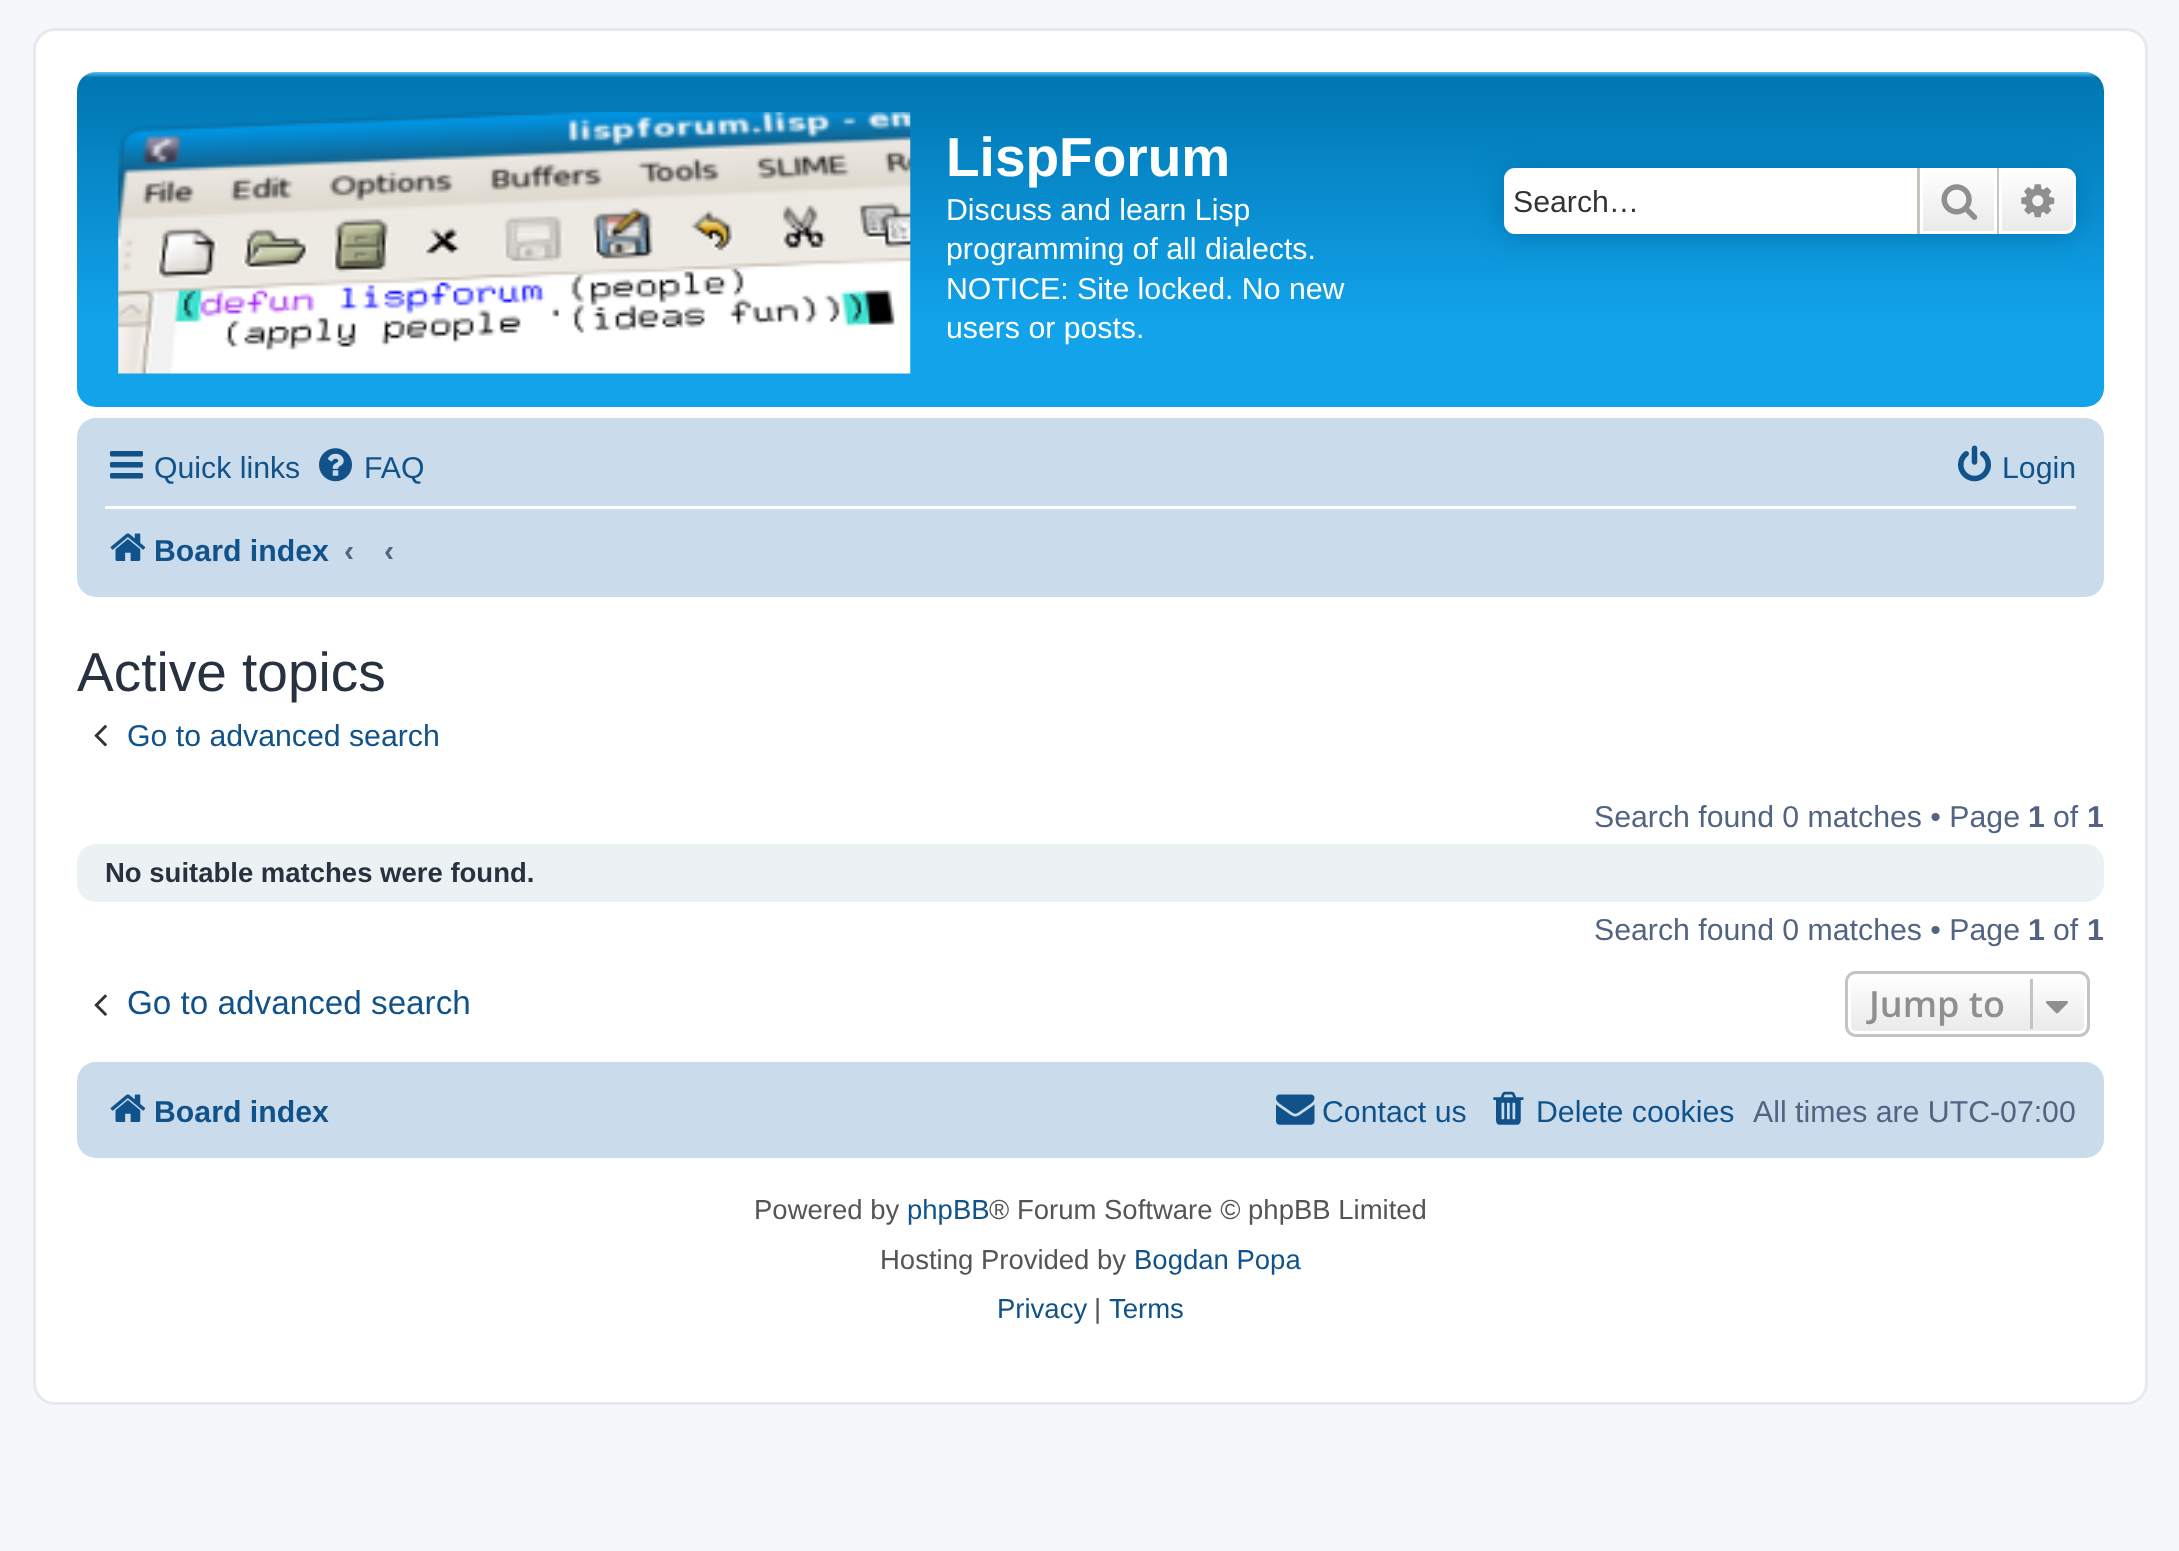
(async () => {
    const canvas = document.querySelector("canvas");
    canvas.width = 2179;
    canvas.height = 1551;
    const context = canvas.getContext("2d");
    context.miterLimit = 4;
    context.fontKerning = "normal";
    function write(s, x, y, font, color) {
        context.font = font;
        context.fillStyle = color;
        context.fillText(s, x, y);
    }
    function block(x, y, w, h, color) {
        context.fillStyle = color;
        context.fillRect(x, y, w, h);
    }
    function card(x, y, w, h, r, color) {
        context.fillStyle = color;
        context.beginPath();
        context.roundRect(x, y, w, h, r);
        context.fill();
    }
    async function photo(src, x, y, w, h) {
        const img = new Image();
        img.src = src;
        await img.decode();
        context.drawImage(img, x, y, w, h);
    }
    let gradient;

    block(0, 0, 2179, 1551, "rgb(245, 247, 250)");
    context.fillStyle = "rgb(255, 255, 255)";
    context.beginPath();
    context.roundRect(34.5, 29.5, 2112, 1374, 20.5);
    context.fill();
    context.strokeStyle = "rgb(230, 233, 237)";
    context.lineWidth = 3;
    context.stroke();
    gradient = context.createLinearGradient(1090, 71, 1090, 407);
    gradient.addColorStop(0, "rgb(106, 206, 255)");
    gradient.addColorStop(0.02, "rgb(0, 118, 177)");
    gradient.addColorStop(0.75, "rgb(18, 163, 235)");
    gradient.addColorStop(1, "rgb(18, 163, 235)");
    context.fillStyle = gradient;
    context.beginPath();
    context.roundRect(77, 72, 2027, 335, 19);
    context.fill();
    await photo("media/1.png", 118, 112, 793, 262);
    write("LispForum", 946, 176, "bold 55px Liberation Sans", "rgb(255, 255, 255)");
    write("Discuss and learn Lisp", 946, 220, "30.25px Liberation Sans", "rgb(255, 255, 255)");
    write("programming of all dialects.", 946, 259, "30.25px Liberation Sans", "rgb(255, 255, 255)");
    write("NOTICE: Site locked. No new", 946, 299, "30.25px Liberation Sans", "rgb(255, 255, 255)");
    write("users or posts.", 946, 338, "30.25px Liberation Sans", "rgb(255, 255, 255)");
    context.fillStyle = "rgb(0, 117, 176)";
    context.filter = "blur(14px)";
    context.beginPath();
    context.roundRect(1504, 168, 572, 66, 11);
    context.fill();
    context.filter = "none";
    context.fillStyle = "rgb(255, 255, 255)";
    context.beginPath();
    context.roundRect(1504, 168, 413, 66, [11, 0, 0, 11]);
    context.fill();
    write("Search…", 1513, 212, "30.25px Liberation Sans", "rgb(51, 51, 51)");
    gradient = context.createLinearGradient(1958, 168, 1958, 234);
    gradient.addColorStop(0, "rgb(255, 255, 255)");
    gradient.addColorStop(1, "rgb(233, 233, 233)");
    context.fillStyle = gradient;
    context.fillRect(1923, 171, 71, 60);
    context.strokeStyle = "rgb(255, 255, 255)";
    context.strokeRect(1921.5, 169.5, 74, 63);
    block(1997, 168, 2, 66, "rgb(199, 195, 191)");
    block(1917, 168, 3, 66, "rgb(199, 195, 191)");
    await photo("media/2.png", 1941, 184, 37, 36);
    gradient = context.createLinearGradient(2038, 168, 2038, 234);
    gradient.addColorStop(0, "rgb(255, 255, 255)");
    gradient.addColorStop(1, "rgb(233, 233, 233)");
    context.fillStyle = gradient;
    context.beginPath();
    context.roundRect(2000.5, 169.5, 74, 63, [0, 9.5, 9.5, 0]);
    context.fill();
    context.stroke();
    await photo("media/3.png", 2021, 184, 34, 34);
    card(77, 418, 2027, 179, 19, "rgb(202, 220, 235)");
    await photo("media/4.png", 110, 451, 33, 28);
    write("Quick links", 154, 478, "30.25px Liberation Sans", "rgb(16, 82, 137)");
    await photo("media/5.png", 319, 448, 33, 34);
    write("FAQ", 364, 478, "30.25px Liberation Sans", "rgb(16, 82, 137)");
    await photo("media/6.png", 1958, 445, 33, 37);
    write("Login", 2002, 478, "30.25px Liberation Sans", "rgb(16, 82, 137)");
    block(105, 506, 1971, 3, "rgb(255, 255, 255)");
    await photo("media/7.png", 110, 533, 36, 28);
    write("Board index", 154, 561, "bold 30.25px Liberation Sans", "rgb(16, 82, 137)");
    write("‹", 344, 561, "bold 30.25px Liberation Sans", "rgb(83, 100, 130)");
    write("‹", 384, 561, "bold 30.25px Liberation Sans", "rgb(83, 100, 130)");
    write("Active topics", 77, 691, "55px Liberation Sans", "rgb(40, 49, 63)");
    await photo("media/8.png", 94, 725, 13, 22);
    write("Go to advanced search", 127, 746, "30.25px Liberation Sans", "rgb(16, 82, 137)");
    write("Search found 0 matches • Page", 1594, 827, "30.25px Liberation Sans", "rgb(83, 100, 130)");
    write("1", 2028, 827, "bold 30.25px Liberation Sans", "rgb(83, 100, 130)");
    write("of", 2053, 827, "30.25px Liberation Sans", "rgb(83, 100, 130)");
    write("1", 2087, 827, "bold 30.25px Liberation Sans", "rgb(83, 100, 130)");
    card(77, 844, 2027, 58, 19, "rgb(236, 241, 243)");
    write("No suitable matches were found.", 105, 882, "bold 27.5px Liberation Sans", "rgb(40, 49, 63)");
    write("Search found 0 matches • Page", 1594, 940, "30.25px Liberation Sans", "rgb(83, 100, 130)");
    write("1", 2028, 940, "bold 30.25px Liberation Sans", "rgb(83, 100, 130)");
    write("of", 2053, 940, "30.25px Liberation Sans", "rgb(83, 100, 130)");
    write("1", 2087, 940, "bold 30.25px Liberation Sans", "rgb(83, 100, 130)");
    await photo("media/9.png", 94, 994, 13, 22);
    write("Go to advanced search", 127, 1014, "33.25px Liberation Sans", "rgb(16, 82, 137)");
    context.save();
    context.beginPath();
    context.roundRect(1845, 971, 245, 66, 11);
    context.clip();
    gradient = context.createLinearGradient(1968, 974, 1968, 1034);
    gradient.addColorStop(0, "rgb(255, 255, 255)");
    gradient.addColorStop(1, "rgb(233, 233, 233)");
    context.fillStyle = gradient;
    context.fillRect(1845, 974, 245, 60);
    context.restore();
    context.beginPath();
    context.roundRect(1849.5, 975.5, 236, 57, 6.5);
    context.stroke();
    context.beginPath();
    context.roundRect(1846.5, 972.5, 242, 63, 9.5);
    context.strokeStyle = "rgb(199, 195, 191)";
    context.stroke();
    write("Jump to", 1869, 1017, "600 36px Open Sans", "rgb(143, 143, 143)");
    block(2030, 979, 3, 50, "rgb(199, 195, 191)");
    await photo("media/10.png", 2046, 1001, 22, 13);
    card(77, 1062, 2027, 96, 19, "rgb(202, 220, 235)");
    await photo("media/7.png", 110, 1094, 36, 28);
    write("Board index", 154, 1122, "bold 30.25px Liberation Sans", "rgb(16, 82, 137)");
    await photo("media/11.png", 1276, 1094, 39, 31);
    write("Contact us", 1322, 1122, "30.25px Liberation Sans", "rgb(16, 82, 137)");
    await photo("media/12.png", 1493, 1091, 31, 34);
    write("Delete cookies", 1536, 1122, "30.25px Liberation Sans", "rgb(16, 82, 137)");
    write("All times are UTC-07:00", 1753, 1122, "30.25px Liberation Sans", "rgb(83, 100, 130)");
    write("Powered by", 754, 1219, "27.5px Liberation Sans", "rgb(85, 85, 85)");
    write("phpBB", 907, 1219, "27.5px Liberation Sans", "rgb(16, 82, 137)");
    write("® Forum Software © phpBB Limited", 989, 1219, "27.5px Liberation Sans", "rgb(85, 85, 85)");
    write("Hosting Provided by", 880, 1269, "27.5px Liberation Sans", "rgb(85, 85, 85)");
    write("Bogdan Popa", 1134, 1269, "27.5px Liberation Sans", "rgb(16, 82, 137)");
    write("Privacy", 997, 1318, "27.5px Liberation Sans", "rgb(16, 82, 137)");
    write("|", 1094, 1318, "27.5px Liberation Sans", "rgb(85, 85, 85)");
    write("Terms", 1109, 1318, "27.5px Liberation Sans", "rgb(16, 82, 137)");
})();
